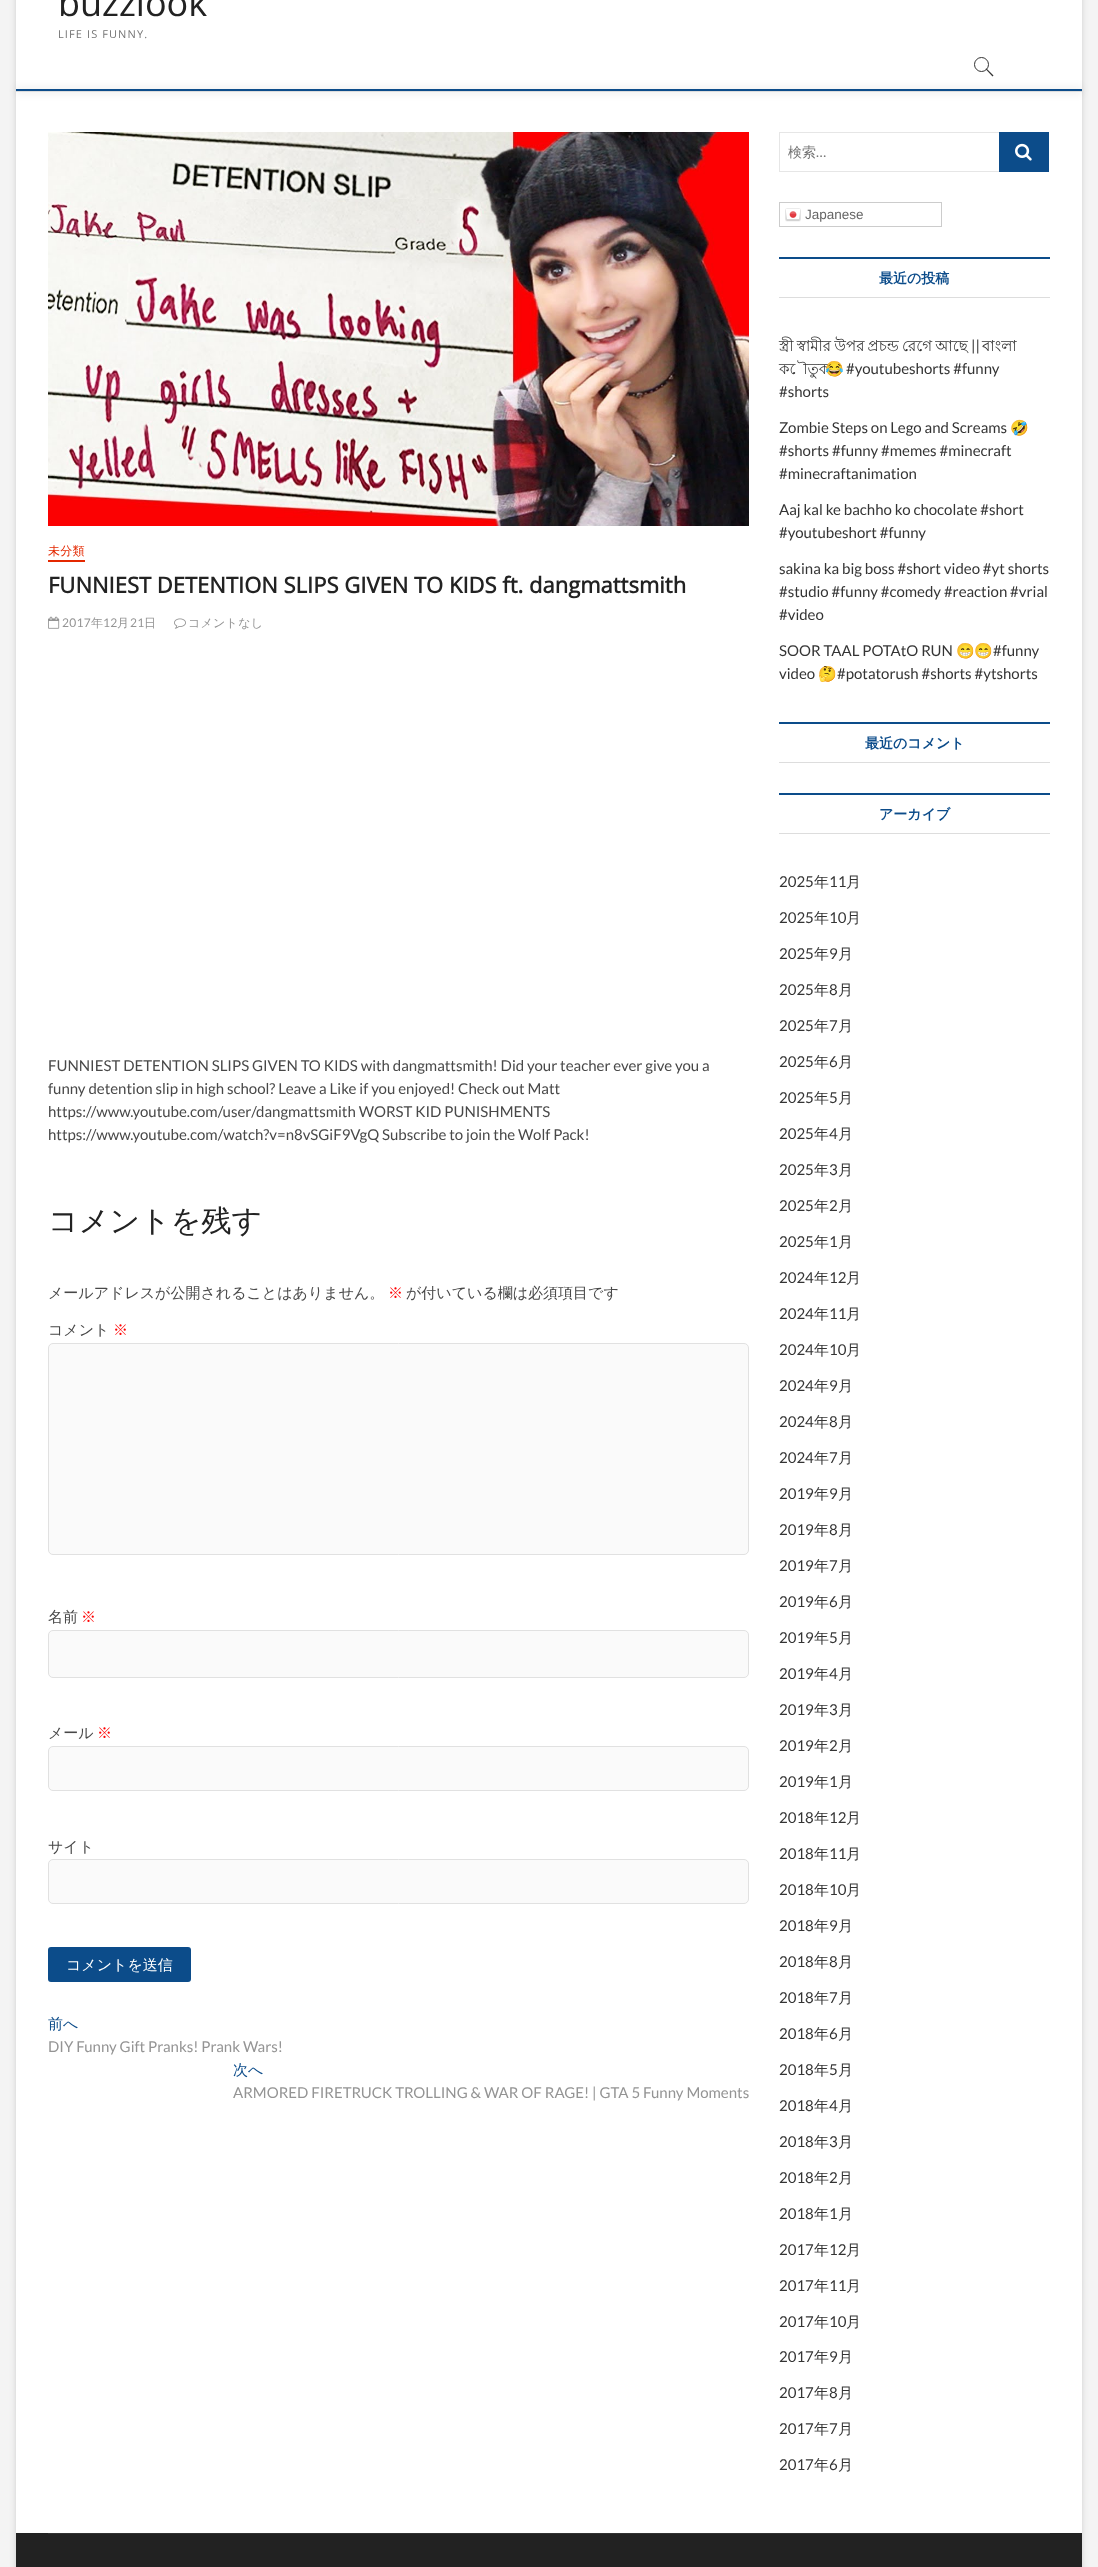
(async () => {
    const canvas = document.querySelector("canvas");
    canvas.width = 1098;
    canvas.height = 2567;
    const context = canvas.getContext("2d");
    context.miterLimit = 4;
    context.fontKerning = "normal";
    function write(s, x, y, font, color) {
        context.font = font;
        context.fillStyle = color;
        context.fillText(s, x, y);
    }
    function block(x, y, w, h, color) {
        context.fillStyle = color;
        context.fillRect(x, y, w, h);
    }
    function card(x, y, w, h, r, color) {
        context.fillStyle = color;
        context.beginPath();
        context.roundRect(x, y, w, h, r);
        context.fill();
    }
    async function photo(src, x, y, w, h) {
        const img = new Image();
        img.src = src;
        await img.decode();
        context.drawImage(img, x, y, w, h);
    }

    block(0, 0, 1098, 2567, "rgb(244, 244, 244)");
    context.fillStyle = "rgba(0, 0, 0, 0.15)";
    context.filter = "blur(3px)";
    context.beginPath();
    context.rect(16, -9, 1066, 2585);
    context.fill();
    context.filter = "none";
    block(16, 0, 1066, 2533, "rgb(255, 255, 255)");
    write("buzzlook", 58, 16, "36px Open Sans", "rgb(34, 34, 34)");
    context.letterSpacing = "1.1px";
    write("LIFE IS FUNNY.", 58, 38, "11px Open Sans", "rgb(116, 116, 116)");
    context.fillStyle = "rgba(0, 0, 0, 0.15)";
    context.filter = "blur(4px)";
    context.beginPath();
    context.rect(16, 89, 1066, 3);
    context.fill();
    context.filter = "none";
    block(16, 89, 1066, 2, "rgb(12, 76, 138)");
    block(16, 91, 1066, 1, "rgb(221, 221, 221)");
    context.beginPath();
    context.arc(981.5, 64.5, 7, 0, Math.PI * 2);
    context.strokeStyle = "rgb(51, 51, 51)";
    context.stroke();
    context.fillStyle = "rgb(51, 51, 51)";
    context.beginPath();
    context.moveTo(985.5, 69);
    context.lineTo(986.5, 68.5);
    context.lineTo(993.5, 75.5);
    context.lineTo(992.5, 76.5);
    context.closePath();
    context.fill();
    await photo("media/1.png", 48, 132, 701, 394);
    context.letterSpacing = "0.25px";
    write("未分類", 48, 555, "500 12px WenQuanYi Zen Hei", "rgb(228, 40, 0)");
    block(48, 560, 37, 2, "rgb(228, 40, 0)");
    context.letterSpacing = "0px";
    write("FUNNIEST DETENTION SLIPS GIVEN TO KIDS ft. dangmattsmith", 48, 593, "bold 22px Open Sans", "rgb(34, 34, 34)");
    await photo("media/2.png", 48, 616, 12, 13);
    context.letterSpacing = "0.25px";
    write("2017", 62, 627, "12px Lato", "rgb(148, 148, 148)");
    write("年", 91, 627, "500 12px WenQuanYi Zen Hei", "rgb(148, 148, 148)");
    write("12", 103, 627, "12px Lato", "rgb(148, 148, 148)");
    write("月", 117, 627, "500 12px WenQuanYi Zen Hei", "rgb(148, 148, 148)");
    write("21", 130, 627, "12px Lato", "rgb(148, 148, 148)");
    write("日", 144, 627, "500 12px WenQuanYi Zen Hei", "rgb(148, 148, 148)");
    await photo("media/3.png", 174, 618, 12, 11);
    write("コメントなし", 188, 627, "500 12px WenQuanYi Zen Hei", "rgb(148, 148, 148)");
    context.letterSpacing = "0px";
    write("FUNNIEST DETENTION SLIPS GIVEN TO KIDS with dangmattsmith! Did your teacher ever give you a", 48, 1071, "15px Lato", "rgb(72, 72, 72)");
    write("funny detention slip in high school? Leave a Like if you enjoyed! Check out Matt", 48, 1094, "15px Lato", "rgb(72, 72, 72)");
    write("https://www.youtube.com/user/dangmattsmith WORST KID PUNISHMENTS", 48, 1117, "15px Lato", "rgb(72, 72, 72)");
    write("https://www.youtube.com/watch?v=n8vSGiF9VgQ Subscribe to join the Wolf Pack!", 48, 1140, "15px Lato", "rgb(72, 72, 72)");
    write("コメントを残す", 48, 1231, "500 30px WenQuanYi Zen Hei", "rgb(34, 34, 34)");
    write("メールアドレスが公開されることはありません。", 48, 1298, "500 15px WenQuanYi Zen Hei", "rgb(72, 72, 72)");
    write("※", 388, 1298, "500 15px WenQuanYi Zen Hei", "rgb(255, 0, 0)");
    write("が付いている欄は必須項目です", 406, 1298, "500 15px WenQuanYi Zen Hei", "rgb(72, 72, 72)");
    write("コメント", 48, 1335, "500 15px WenQuanYi Zen Hei", "rgb(72, 72, 72)");
    write("※", 113, 1335, "500 15px WenQuanYi Zen Hei", "rgb(255, 0, 0)");
    context.fillStyle = "rgb(250, 250, 250)";
    context.beginPath();
    context.roundRect(48.5, 1343.5, 700, 211, 4.5);
    context.fill();
    context.strokeStyle = "rgb(225, 225, 225)";
    context.stroke();
    write("名前", 48, 1622, "500 15px WenQuanYi Zen Hei", "rgb(72, 72, 72)");
    write("※", 81, 1622, "500 15px WenQuanYi Zen Hei", "rgb(255, 0, 0)");
    context.fillStyle = "rgb(250, 250, 250)";
    context.beginPath();
    context.roundRect(48.5, 1630.5, 700, 47, 4.5);
    context.fill();
    context.stroke();
    write("メール", 48, 1738, "500 15px WenQuanYi Zen Hei", "rgb(72, 72, 72)");
    write("※", 97, 1738, "500 15px WenQuanYi Zen Hei", "rgb(255, 0, 0)");
    context.fillStyle = "rgb(250, 250, 250)";
    context.beginPath();
    context.roundRect(48.5, 1746.5, 700, 44, 4.5);
    context.fill();
    context.stroke();
    write("サイト", 48, 1852, "500 15px WenQuanYi Zen Hei", "rgb(72, 72, 72)");
    context.fillStyle = "rgb(250, 250, 250)";
    context.beginPath();
    context.roundRect(48.5, 1859.5, 700, 44, 4.5);
    context.fill();
    context.stroke();
    card(48, 1947, 143, 35, 3, "rgb(12, 76, 138)");
    write("コメントを送信", 66, 1970, "500 15px WenQuanYi Zen Hei", "rgb(255, 255, 255)");
    write("前へ", 48, 2029, "500 15px WenQuanYi Zen Hei", "rgb(12, 76, 138)");
    write("DIY Funny Gift Pranks! Prank Wars!", 48, 2052, "15px Lato", "rgb(148, 148, 148)");
    write("次へ", 233, 2075, "500 15px WenQuanYi Zen Hei", "rgb(12, 76, 138)");
    write("ARMORED FIRETRUCK TROLLING & WAR OF RAGE! | GTA 5 Funny Moments", 233, 2098, "15px Lato", "rgb(148, 148, 148)");
    context.strokeStyle = "rgb(230, 230, 230)";
    context.strokeRect(779.5, 132.5, 220, 39);
    write("検索", 788, 157, "500 14px WenQuanYi Zen Hei", "rgb(116, 116, 116)");
    write("…", 816, 157, "14px Lato", "rgb(116, 116, 116)");
    block(999, 132, 50, 40, "rgb(12, 76, 138)");
    await photo("media/4.png", 1015, 143, 17, 18);
    context.strokeStyle = "rgb(204, 204, 204)";
    context.strokeRect(779.5, 202.5, 162, 24);
    await photo("media/5.png", 785, 208, 16, 14);
    write("Japanese", 805, 219, "13.5px Liberation Sans", "rgb(102, 102, 102)");
    block(779, 257, 271, 2, "rgb(12, 76, 138)");
    block(779, 297, 271, 1, "rgb(221, 221, 221)");
    write("最近の投稿", 879, 283, "bold 14px WenQuanYi Zen Hei", "rgb(12, 76, 138)");
    context.wordSpacing = "-1px";
    write("স্ত্রী স্বামীর উপর প্রচন্ড রেগে আছে", 779, 351, "15px Lohit Bengali", "rgb(52, 52, 52)");
    context.wordSpacing = "0px";
    write("||", 971, 351, "15px Lato", "rgb(52, 52, 52)");
    write("বাংলা", 982, 351, "15px Lohit Bengali", "rgb(52, 52, 52)");
    write("কৌতুক", 779, 374, "15px Lohit Bengali", "rgb(52, 52, 52)");
    write("😂", 825, 374, "15px Noto Color Emoji", "rgb(52, 52, 52)");
    write("#youtubeshorts #funny", 846, 374, "15px Lato", "rgb(52, 52, 52)");
    write("#shorts", 779, 397, "15px Lato", "rgb(52, 52, 52)");
    write("Zombie Steps on Lego and Screams", 779, 433, "15px Lato", "rgb(52, 52, 52)");
    write("🤣", 1010, 433, "15px Noto Color Emoji", "rgb(52, 52, 52)");
    write("#shorts #funny #memes #minecraft", 779, 456, "15px Lato", "rgb(52, 52, 52)");
    write("#minecraftanimation", 779, 479, "15px Lato", "rgb(52, 52, 52)");
    write("Aaj kal ke bachho ko chocolate #short", 779, 515, "15px Lato", "rgb(52, 52, 52)");
    write("#youtubeshort #funny", 779, 538, "15px Lato", "rgb(52, 52, 52)");
    write("sakina ka big boss #short video #yt shorts", 779, 574, "15px Lato", "rgb(52, 52, 52)");
    write("#studio #funny #comedy #reaction #vrial", 779, 597, "15px Lato", "rgb(52, 52, 52)");
    write("#video", 779, 620, "15px Lato", "rgb(52, 52, 52)");
    write("SOOR TAAL POTAtO RUN", 779, 656, "15px Lato", "rgb(52, 52, 52)");
    write("😁😁", 956, 656, "15px Noto Color Emoji", "rgb(52, 52, 52)");
    write("#funny", 993, 656, "15px Lato", "rgb(52, 52, 52)");
    write("video", 779, 679, "15px Lato", "rgb(52, 52, 52)");
    write("🤔", 818, 679, "15px Noto Color Emoji", "rgb(52, 52, 52)");
    write("#potatorush #shorts #ytshorts", 837, 679, "15px Lato", "rgb(52, 52, 52)");
    block(779, 722, 271, 2, "rgb(12, 76, 138)");
    block(779, 762, 271, 1, "rgb(221, 221, 221)");
    write("最近のコメント", 865, 748, "bold 14px WenQuanYi Zen Hei", "rgb(12, 76, 138)");
    block(779, 793, 271, 2, "rgb(12, 76, 138)");
    block(779, 833, 271, 1, "rgb(221, 221, 221)");
    write("アーカイブ", 879, 819, "bold 14px WenQuanYi Zen Hei", "rgb(12, 76, 138)");
    write("2025", 779, 887, "15px Lato", "rgb(52, 52, 52)");
    write("年", 814, 887, "500 15px WenQuanYi Zen Hei", "rgb(52, 52, 52)");
    write("11", 829, 887, "15px Lato", "rgb(52, 52, 52)");
    write("月", 846, 887, "500 15px WenQuanYi Zen Hei", "rgb(52, 52, 52)");
    write("2025", 779, 923, "15px Lato", "rgb(52, 52, 52)");
    write("年", 814, 923, "500 15px WenQuanYi Zen Hei", "rgb(52, 52, 52)");
    write("10", 829, 923, "15px Lato", "rgb(52, 52, 52)");
    write("月", 846, 923, "500 15px WenQuanYi Zen Hei", "rgb(52, 52, 52)");
    write("2025", 779, 959, "15px Lato", "rgb(52, 52, 52)");
    write("年", 814, 959, "500 15px WenQuanYi Zen Hei", "rgb(52, 52, 52)");
    write("9", 829, 959, "15px Lato", "rgb(52, 52, 52)");
    write("月", 838, 959, "500 15px WenQuanYi Zen Hei", "rgb(52, 52, 52)");
    write("2025", 779, 995, "15px Lato", "rgb(52, 52, 52)");
    write("年", 814, 995, "500 15px WenQuanYi Zen Hei", "rgb(52, 52, 52)");
    write("8", 829, 995, "15px Lato", "rgb(52, 52, 52)");
    write("月", 838, 995, "500 15px WenQuanYi Zen Hei", "rgb(52, 52, 52)");
    write("2025", 779, 1031, "15px Lato", "rgb(52, 52, 52)");
    write("年", 814, 1031, "500 15px WenQuanYi Zen Hei", "rgb(52, 52, 52)");
    write("7", 829, 1031, "15px Lato", "rgb(52, 52, 52)");
    write("月", 838, 1031, "500 15px WenQuanYi Zen Hei", "rgb(52, 52, 52)");
    write("2025", 779, 1067, "15px Lato", "rgb(52, 52, 52)");
    write("年", 814, 1067, "500 15px WenQuanYi Zen Hei", "rgb(52, 52, 52)");
    write("6", 829, 1067, "15px Lato", "rgb(52, 52, 52)");
    write("月", 838, 1067, "500 15px WenQuanYi Zen Hei", "rgb(52, 52, 52)");
    write("2025", 779, 1103, "15px Lato", "rgb(52, 52, 52)");
    write("年", 814, 1103, "500 15px WenQuanYi Zen Hei", "rgb(52, 52, 52)");
    write("5", 829, 1103, "15px Lato", "rgb(52, 52, 52)");
    write("月", 838, 1103, "500 15px WenQuanYi Zen Hei", "rgb(52, 52, 52)");
    write("2025", 779, 1139, "15px Lato", "rgb(52, 52, 52)");
    write("年", 814, 1139, "500 15px WenQuanYi Zen Hei", "rgb(52, 52, 52)");
    write("4", 829, 1139, "15px Lato", "rgb(52, 52, 52)");
    write("月", 838, 1139, "500 15px WenQuanYi Zen Hei", "rgb(52, 52, 52)");
    write("2025", 779, 1175, "15px Lato", "rgb(52, 52, 52)");
    write("年", 814, 1175, "500 15px WenQuanYi Zen Hei", "rgb(52, 52, 52)");
    write("3", 829, 1175, "15px Lato", "rgb(52, 52, 52)");
    write("月", 838, 1175, "500 15px WenQuanYi Zen Hei", "rgb(52, 52, 52)");
    write("2025", 779, 1211, "15px Lato", "rgb(52, 52, 52)");
    write("年", 814, 1211, "500 15px WenQuanYi Zen Hei", "rgb(52, 52, 52)");
    write("2", 829, 1211, "15px Lato", "rgb(52, 52, 52)");
    write("月", 838, 1211, "500 15px WenQuanYi Zen Hei", "rgb(52, 52, 52)");
    write("2025", 779, 1247, "15px Lato", "rgb(52, 52, 52)");
    write("年", 814, 1247, "500 15px WenQuanYi Zen Hei", "rgb(52, 52, 52)");
    write("1", 829, 1247, "15px Lato", "rgb(52, 52, 52)");
    write("月", 838, 1247, "500 15px WenQuanYi Zen Hei", "rgb(52, 52, 52)");
    write("2024", 779, 1283, "15px Lato", "rgb(52, 52, 52)");
    write("年", 814, 1283, "500 15px WenQuanYi Zen Hei", "rgb(52, 52, 52)");
    write("12", 829, 1283, "15px Lato", "rgb(52, 52, 52)");
    write("月", 846, 1283, "500 15px WenQuanYi Zen Hei", "rgb(52, 52, 52)");
    write("2024", 779, 1319, "15px Lato", "rgb(52, 52, 52)");
    write("年", 814, 1319, "500 15px WenQuanYi Zen Hei", "rgb(52, 52, 52)");
    write("11", 829, 1319, "15px Lato", "rgb(52, 52, 52)");
    write("月", 846, 1319, "500 15px WenQuanYi Zen Hei", "rgb(52, 52, 52)");
    write("2024", 779, 1355, "15px Lato", "rgb(52, 52, 52)");
    write("年", 814, 1355, "500 15px WenQuanYi Zen Hei", "rgb(52, 52, 52)");
    write("10", 829, 1355, "15px Lato", "rgb(52, 52, 52)");
    write("月", 846, 1355, "500 15px WenQuanYi Zen Hei", "rgb(52, 52, 52)");
    write("2024", 779, 1391, "15px Lato", "rgb(52, 52, 52)");
    write("年", 814, 1391, "500 15px WenQuanYi Zen Hei", "rgb(52, 52, 52)");
    write("9", 829, 1391, "15px Lato", "rgb(52, 52, 52)");
    write("月", 838, 1391, "500 15px WenQuanYi Zen Hei", "rgb(52, 52, 52)");
    write("2024", 779, 1427, "15px Lato", "rgb(52, 52, 52)");
    write("年", 814, 1427, "500 15px WenQuanYi Zen Hei", "rgb(52, 52, 52)");
    write("8", 829, 1427, "15px Lato", "rgb(52, 52, 52)");
    write("月", 838, 1427, "500 15px WenQuanYi Zen Hei", "rgb(52, 52, 52)");
    write("2024", 779, 1463, "15px Lato", "rgb(52, 52, 52)");
    write("年", 814, 1463, "500 15px WenQuanYi Zen Hei", "rgb(52, 52, 52)");
    write("7", 829, 1463, "15px Lato", "rgb(52, 52, 52)");
    write("月", 838, 1463, "500 15px WenQuanYi Zen Hei", "rgb(52, 52, 52)");
    write("2019", 779, 1499, "15px Lato", "rgb(52, 52, 52)");
    write("年", 814, 1499, "500 15px WenQuanYi Zen Hei", "rgb(52, 52, 52)");
    write("9", 829, 1499, "15px Lato", "rgb(52, 52, 52)");
    write("月", 838, 1499, "500 15px WenQuanYi Zen Hei", "rgb(52, 52, 52)");
    write("2019", 779, 1535, "15px Lato", "rgb(52, 52, 52)");
    write("年", 814, 1535, "500 15px WenQuanYi Zen Hei", "rgb(52, 52, 52)");
    write("8", 829, 1535, "15px Lato", "rgb(52, 52, 52)");
    write("月", 838, 1535, "500 15px WenQuanYi Zen Hei", "rgb(52, 52, 52)");
    write("2019", 779, 1571, "15px Lato", "rgb(52, 52, 52)");
    write("年", 814, 1571, "500 15px WenQuanYi Zen Hei", "rgb(52, 52, 52)");
    write("7", 829, 1571, "15px Lato", "rgb(52, 52, 52)");
    write("月", 838, 1571, "500 15px WenQuanYi Zen Hei", "rgb(52, 52, 52)");
    write("2019", 779, 1607, "15px Lato", "rgb(52, 52, 52)");
    write("年", 814, 1607, "500 15px WenQuanYi Zen Hei", "rgb(52, 52, 52)");
    write("6", 829, 1607, "15px Lato", "rgb(52, 52, 52)");
    write("月", 838, 1607, "500 15px WenQuanYi Zen Hei", "rgb(52, 52, 52)");
    write("2019", 779, 1643, "15px Lato", "rgb(52, 52, 52)");
    write("年", 814, 1643, "500 15px WenQuanYi Zen Hei", "rgb(52, 52, 52)");
    write("5", 829, 1643, "15px Lato", "rgb(52, 52, 52)");
    write("月", 838, 1643, "500 15px WenQuanYi Zen Hei", "rgb(52, 52, 52)");
    write("2019", 779, 1679, "15px Lato", "rgb(52, 52, 52)");
    write("年", 814, 1679, "500 15px WenQuanYi Zen Hei", "rgb(52, 52, 52)");
    write("4", 829, 1679, "15px Lato", "rgb(52, 52, 52)");
    write("月", 838, 1679, "500 15px WenQuanYi Zen Hei", "rgb(52, 52, 52)");
    write("2019", 779, 1715, "15px Lato", "rgb(52, 52, 52)");
    write("年", 814, 1715, "500 15px WenQuanYi Zen Hei", "rgb(52, 52, 52)");
    write("3", 829, 1715, "15px Lato", "rgb(52, 52, 52)");
    write("月", 838, 1715, "500 15px WenQuanYi Zen Hei", "rgb(52, 52, 52)");
    write("2019", 779, 1751, "15px Lato", "rgb(52, 52, 52)");
    write("年", 814, 1751, "500 15px WenQuanYi Zen Hei", "rgb(52, 52, 52)");
    write("2", 829, 1751, "15px Lato", "rgb(52, 52, 52)");
    write("月", 838, 1751, "500 15px WenQuanYi Zen Hei", "rgb(52, 52, 52)");
    write("2019", 779, 1787, "15px Lato", "rgb(52, 52, 52)");
    write("年", 814, 1787, "500 15px WenQuanYi Zen Hei", "rgb(52, 52, 52)");
    write("1", 829, 1787, "15px Lato", "rgb(52, 52, 52)");
    write("月", 838, 1787, "500 15px WenQuanYi Zen Hei", "rgb(52, 52, 52)");
    write("2018", 779, 1823, "15px Lato", "rgb(52, 52, 52)");
    write("年", 814, 1823, "500 15px WenQuanYi Zen Hei", "rgb(52, 52, 52)");
    write("12", 829, 1823, "15px Lato", "rgb(52, 52, 52)");
    write("月", 846, 1823, "500 15px WenQuanYi Zen Hei", "rgb(52, 52, 52)");
    write("2018", 779, 1859, "15px Lato", "rgb(52, 52, 52)");
    write("年", 814, 1859, "500 15px WenQuanYi Zen Hei", "rgb(52, 52, 52)");
    write("11", 829, 1859, "15px Lato", "rgb(52, 52, 52)");
    write("月", 846, 1859, "500 15px WenQuanYi Zen Hei", "rgb(52, 52, 52)");
    write("2018", 779, 1895, "15px Lato", "rgb(52, 52, 52)");
    write("年", 814, 1895, "500 15px WenQuanYi Zen Hei", "rgb(52, 52, 52)");
    write("10", 829, 1895, "15px Lato", "rgb(52, 52, 52)");
    write("月", 846, 1895, "500 15px WenQuanYi Zen Hei", "rgb(52, 52, 52)");
    write("2018", 779, 1931, "15px Lato", "rgb(52, 52, 52)");
    write("年", 814, 1931, "500 15px WenQuanYi Zen Hei", "rgb(52, 52, 52)");
    write("9", 829, 1931, "15px Lato", "rgb(52, 52, 52)");
    write("月", 838, 1931, "500 15px WenQuanYi Zen Hei", "rgb(52, 52, 52)");
    write("2018", 779, 1967, "15px Lato", "rgb(52, 52, 52)");
    write("年", 814, 1967, "500 15px WenQuanYi Zen Hei", "rgb(52, 52, 52)");
    write("8", 829, 1967, "15px Lato", "rgb(52, 52, 52)");
    write("月", 838, 1967, "500 15px WenQuanYi Zen Hei", "rgb(52, 52, 52)");
    write("2018", 779, 2003, "15px Lato", "rgb(52, 52, 52)");
    write("年", 814, 2003, "500 15px WenQuanYi Zen Hei", "rgb(52, 52, 52)");
    write("7", 829, 2003, "15px Lato", "rgb(52, 52, 52)");
    write("月", 838, 2003, "500 15px WenQuanYi Zen Hei", "rgb(52, 52, 52)");
    write("2018", 779, 2039, "15px Lato", "rgb(52, 52, 52)");
    write("年", 814, 2039, "500 15px WenQuanYi Zen Hei", "rgb(52, 52, 52)");
    write("6", 829, 2039, "15px Lato", "rgb(52, 52, 52)");
    write("月", 838, 2039, "500 15px WenQuanYi Zen Hei", "rgb(52, 52, 52)");
    write("2018", 779, 2075, "15px Lato", "rgb(52, 52, 52)");
    write("年", 814, 2075, "500 15px WenQuanYi Zen Hei", "rgb(52, 52, 52)");
    write("5", 829, 2075, "15px Lato", "rgb(52, 52, 52)");
    write("月", 838, 2075, "500 15px WenQuanYi Zen Hei", "rgb(52, 52, 52)");
    write("2018", 779, 2111, "15px Lato", "rgb(52, 52, 52)");
    write("年", 814, 2111, "500 15px WenQuanYi Zen Hei", "rgb(52, 52, 52)");
    write("4", 829, 2111, "15px Lato", "rgb(52, 52, 52)");
    write("月", 838, 2111, "500 15px WenQuanYi Zen Hei", "rgb(52, 52, 52)");
    write("2018", 779, 2147, "15px Lato", "rgb(52, 52, 52)");
    write("年", 814, 2147, "500 15px WenQuanYi Zen Hei", "rgb(52, 52, 52)");
    write("3", 829, 2147, "15px Lato", "rgb(52, 52, 52)");
    write("月", 838, 2147, "500 15px WenQuanYi Zen Hei", "rgb(52, 52, 52)");
    write("2018", 779, 2183, "15px Lato", "rgb(52, 52, 52)");
    write("年", 814, 2183, "500 15px WenQuanYi Zen Hei", "rgb(52, 52, 52)");
    write("2", 829, 2183, "15px Lato", "rgb(52, 52, 52)");
    write("月", 838, 2183, "500 15px WenQuanYi Zen Hei", "rgb(52, 52, 52)");
    write("2018", 779, 2219, "15px Lato", "rgb(52, 52, 52)");
    write("年", 814, 2219, "500 15px WenQuanYi Zen Hei", "rgb(52, 52, 52)");
    write("1", 829, 2219, "15px Lato", "rgb(52, 52, 52)");
    write("月", 838, 2219, "500 15px WenQuanYi Zen Hei", "rgb(52, 52, 52)");
    write("2017", 779, 2255, "15px Lato", "rgb(52, 52, 52)");
    write("年", 814, 2255, "500 15px WenQuanYi Zen Hei", "rgb(52, 52, 52)");
    write("12", 829, 2255, "15px Lato", "rgb(52, 52, 52)");
    write("月", 846, 2255, "500 15px WenQuanYi Zen Hei", "rgb(52, 52, 52)");
    write("2017", 779, 2291, "15px Lato", "rgb(52, 52, 52)");
    write("年", 814, 2291, "500 15px WenQuanYi Zen Hei", "rgb(52, 52, 52)");
    write("11", 829, 2291, "15px Lato", "rgb(52, 52, 52)");
    write("月", 846, 2291, "500 15px WenQuanYi Zen Hei", "rgb(52, 52, 52)");
    write("2017", 779, 2327, "15px Lato", "rgb(52, 52, 52)");
    write("年", 814, 2327, "500 15px WenQuanYi Zen Hei", "rgb(52, 52, 52)");
    write("10", 829, 2327, "15px Lato", "rgb(52, 52, 52)");
    write("月", 846, 2327, "500 15px WenQuanYi Zen Hei", "rgb(52, 52, 52)");
    write("2017", 779, 2362, "15px Lato", "rgb(52, 52, 52)");
    write("年", 814, 2362, "500 15px WenQuanYi Zen Hei", "rgb(52, 52, 52)");
    write("9", 829, 2362, "15px Lato", "rgb(52, 52, 52)");
    write("月", 838, 2362, "500 15px WenQuanYi Zen Hei", "rgb(52, 52, 52)");
    write("2017", 779, 2398, "15px Lato", "rgb(52, 52, 52)");
    write("年", 814, 2398, "500 15px WenQuanYi Zen Hei", "rgb(52, 52, 52)");
    write("8", 829, 2398, "15px Lato", "rgb(52, 52, 52)");
    write("月", 838, 2398, "500 15px WenQuanYi Zen Hei", "rgb(52, 52, 52)");
    write("2017", 779, 2434, "15px Lato", "rgb(52, 52, 52)");
    write("年", 814, 2434, "500 15px WenQuanYi Zen Hei", "rgb(52, 52, 52)");
    write("7", 829, 2434, "15px Lato", "rgb(52, 52, 52)");
    write("月", 838, 2434, "500 15px WenQuanYi Zen Hei", "rgb(52, 52, 52)");
    write("2017", 779, 2470, "15px Lato", "rgb(52, 52, 52)");
    write("年", 814, 2470, "500 15px WenQuanYi Zen Hei", "rgb(52, 52, 52)");
    write("6", 829, 2470, "15px Lato", "rgb(52, 52, 52)");
    write("月", 838, 2470, "500 15px WenQuanYi Zen Hei", "rgb(52, 52, 52)");
    block(16, 2533, 1066, 34, "rgb(34, 34, 34)");
    block(48, 2533, 1002, 1, "rgb(51, 51, 51)");
})();
